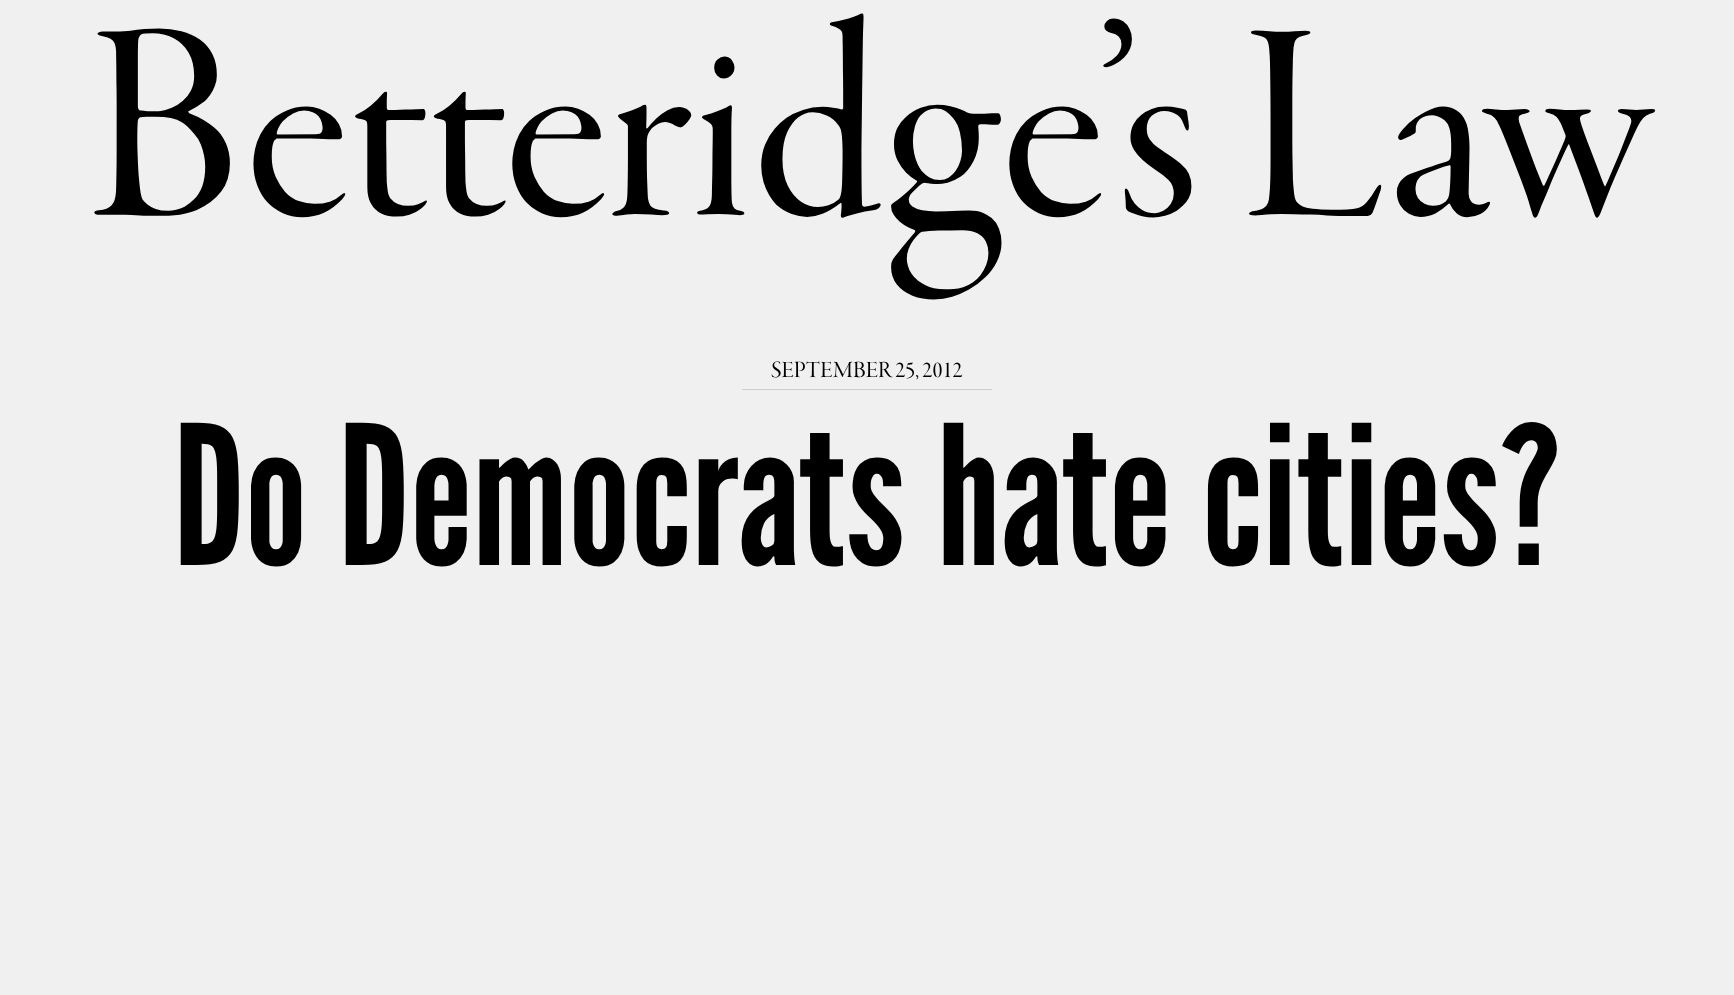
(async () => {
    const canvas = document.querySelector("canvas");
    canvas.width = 1734;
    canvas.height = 995;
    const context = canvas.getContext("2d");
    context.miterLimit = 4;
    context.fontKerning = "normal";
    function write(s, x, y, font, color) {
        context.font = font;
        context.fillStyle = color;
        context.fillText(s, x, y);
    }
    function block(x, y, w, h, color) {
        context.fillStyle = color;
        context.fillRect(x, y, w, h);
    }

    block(0, 0, 1734, 995, "rgb(240, 240, 240)");
    context.wordSpacing = "-2px";
    write("Betteridge’s Law", 87, 214, "290.5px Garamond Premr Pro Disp", "rgb(0, 0, 0)");
    block(742, 389, 250, 1, "rgb(204, 204, 204)");
    context.wordSpacing = "0px";
    write("SEPTEMBER 25, 2012", 771, 377, "24px Garamond Premr Pro Disp", "rgb(0, 0, 0)");
    context.wordSpacing = "1px";
    write("Do Democrats hate cities?", 173, 565, "193.5px League Gothic", "rgb(0, 0, 0)");
})();
